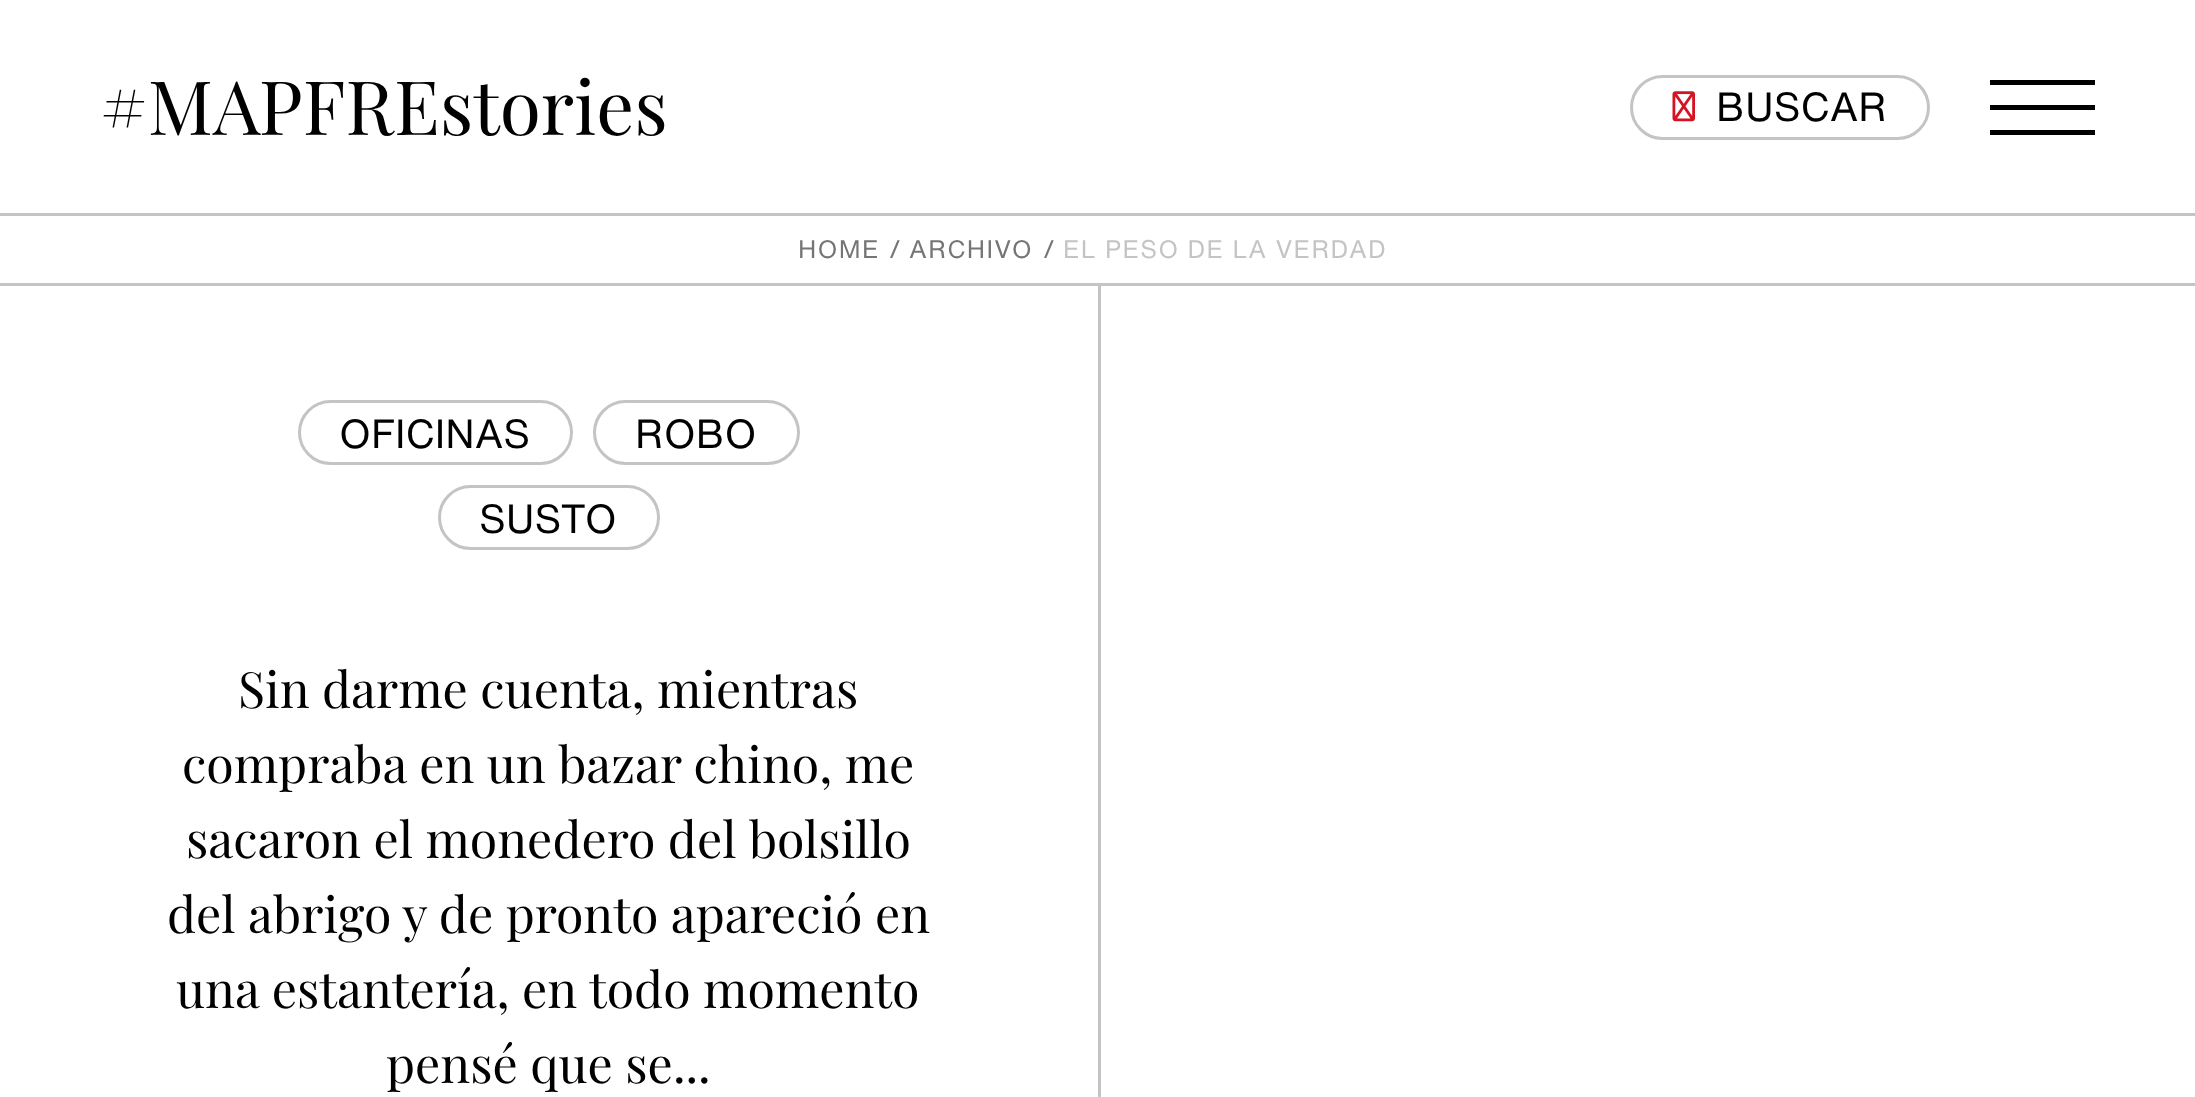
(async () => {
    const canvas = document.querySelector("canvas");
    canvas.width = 2195;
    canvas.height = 1097;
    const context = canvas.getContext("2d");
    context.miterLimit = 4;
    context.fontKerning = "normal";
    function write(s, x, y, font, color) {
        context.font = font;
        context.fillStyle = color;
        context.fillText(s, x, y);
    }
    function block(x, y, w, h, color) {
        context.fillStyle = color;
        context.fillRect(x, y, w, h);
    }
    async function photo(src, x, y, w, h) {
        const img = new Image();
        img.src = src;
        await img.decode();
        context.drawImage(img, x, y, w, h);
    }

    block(0, 0, 2195, 1097, "rgb(255, 255, 255)");
    block(0, 213, 2195, 3, "rgb(196, 196, 196)");
    write("#MAPFREstories", 100, 135, "75px Playfair Display", "rgb(0, 0, 0)");
    context.beginPath();
    context.roundRect(1631.5, 76.5, 297, 62, 31);
    context.strokeStyle = "rgb(196, 196, 196)";
    context.lineWidth = 3;
    context.stroke();
    await photo("media/1.png", 1672, 91, 23, 31);
    write("BUSCAR", 1716, 121, "40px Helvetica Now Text", "rgb(0, 0, 0)");
    block(1990, 80, 105, 5, "rgb(0, 0, 0)");
    block(1990, 105, 105, 5, "rgb(0, 0, 0)");
    block(1990, 130, 105, 5, "rgb(0, 0, 0)");
    block(0, 283, 2195, 3, "rgb(196, 196, 196)");
    context.letterSpacing = "1.25px";
    write("HOME", 798, 258, "25px Helvetica Now Text", "rgb(117, 117, 117)");
    write("/", 889, 258, "25px Helvetica Now Text", "rgb(117, 117, 117)");
    write("ARCHIVO", 909, 258, "25px Helvetica Now Text", "rgb(117, 117, 117)");
    write("/", 1043, 258, "25px Helvetica Now Text", "rgb(117, 117, 117)");
    write("EL PESO DE LA VERDAD", 1063, 258, "25px Helvetica Now Text", "rgb(196, 196, 196)");
    block(1098, 286, 3, 811, "rgb(196, 196, 196)");
    context.beginPath();
    context.roundRect(299.5, 401.5, 272, 62, 31);
    context.stroke();
    context.letterSpacing = "0px";
    write("OFICINAS", 339, 448, "40px Helvetica Now Text", "rgb(0, 0, 0)");
    context.beginPath();
    context.roundRect(594.5, 401.5, 204, 62, 31);
    context.stroke();
    write("ROBO", 635, 448, "40px Helvetica Now Text", "rgb(0, 0, 0)");
    context.beginPath();
    context.roundRect(439.5, 486.5, 219, 62, 31);
    context.stroke();
    write("SUSTO", 479, 533, "40px Helvetica Now Text", "rgb(0, 0, 0)");
    write("Sin darme cuenta, mientras", 238, 708, "50px Playfair Display", "rgb(0, 0, 0)");
    write("compraba en un bazar chino, me", 182, 783, "50px Playfair Display", "rgb(0, 0, 0)");
    write("sacaron el monedero del bolsillo", 186, 858, "50px Playfair Display", "rgb(0, 0, 0)");
    write("del abrigo y de pronto apareció en", 167, 933, "50px Playfair Display", "rgb(0, 0, 0)");
    write("una estantería, en todo momento", 176, 1008, "50px Playfair Display", "rgb(0, 0, 0)");
    write("pensé que se...", 386, 1083, "50px Playfair Display", "rgb(0, 0, 0)");
})();
